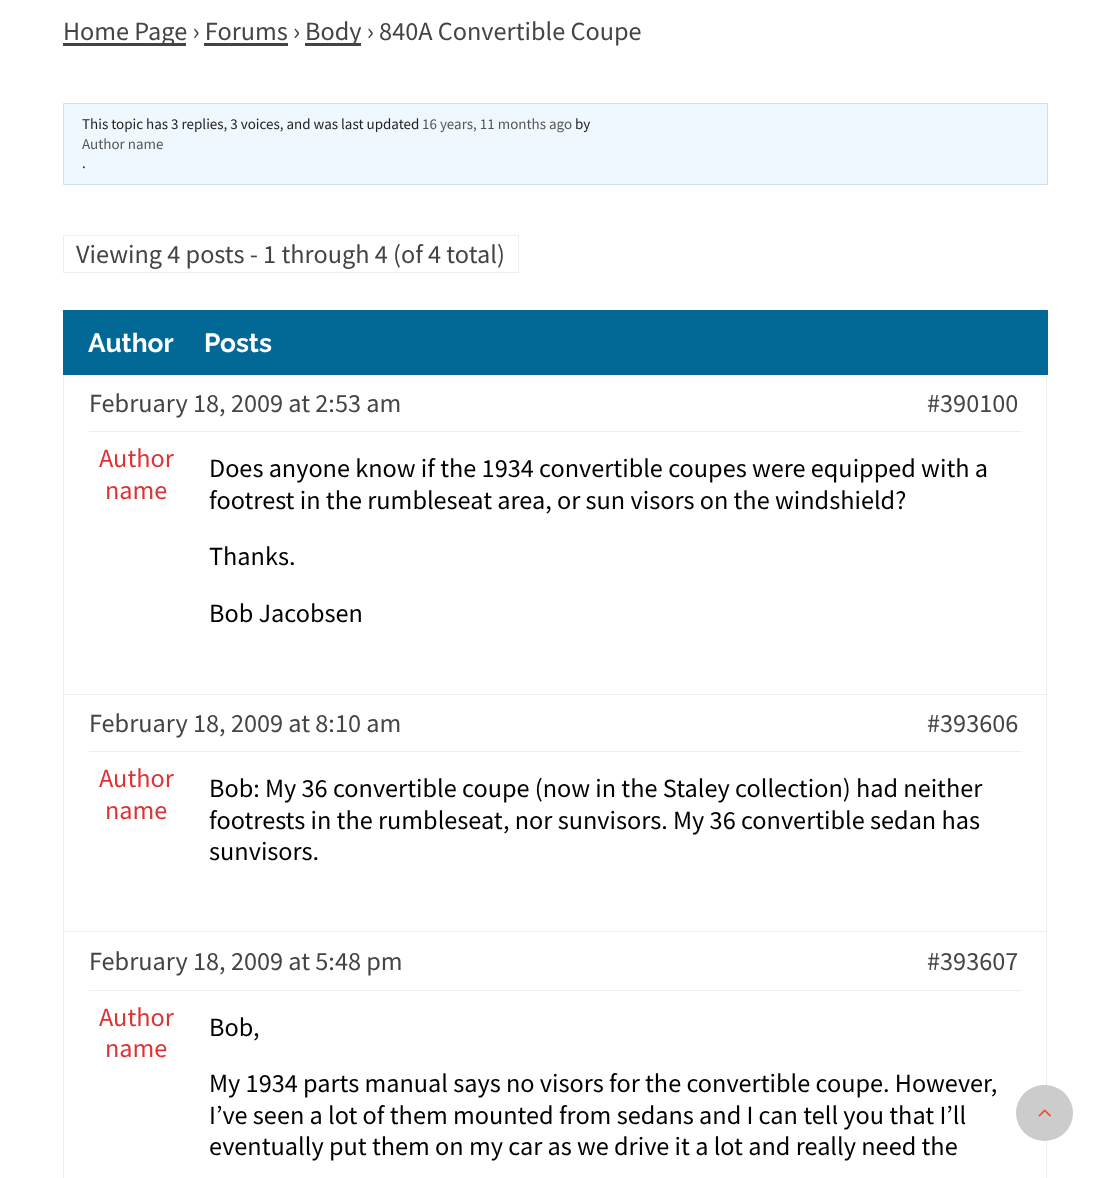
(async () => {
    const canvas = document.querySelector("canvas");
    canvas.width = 1110;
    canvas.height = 1178;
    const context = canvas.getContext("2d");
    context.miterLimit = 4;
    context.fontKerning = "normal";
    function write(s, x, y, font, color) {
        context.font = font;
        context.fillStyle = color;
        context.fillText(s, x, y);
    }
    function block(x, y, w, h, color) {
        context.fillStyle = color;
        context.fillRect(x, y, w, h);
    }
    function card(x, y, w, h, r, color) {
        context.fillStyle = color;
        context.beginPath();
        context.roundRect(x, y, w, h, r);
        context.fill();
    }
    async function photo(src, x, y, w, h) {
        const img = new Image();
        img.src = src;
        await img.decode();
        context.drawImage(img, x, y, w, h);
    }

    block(0, 0, 1110, 1178, "rgb(255, 255, 255)");
    block(63, 43, 123, 3, "rgb(68, 68, 68)");
    write("Home Page › Forums ›", 63, 40, "26.25px Source Sans Pro", "rgb(68, 68, 68)");
    block(305, 43, 56, 3, "rgb(68, 68, 68)");
    write("Body › 840A Convertible Coupe", 305, 40, "26.25px Source Sans Pro", "rgb(68, 68, 68)");
    block(204, 43, 84, 3, "rgb(68, 68, 68)");
    context.fillStyle = "rgb(240, 248, 255)";
    context.beginPath();
    context.rect(63.5, 103.5, 984, 81);
    context.fill();
    context.strokeStyle = "rgb(206, 225, 239)";
    context.stroke();
    write("This topic has 3 replies, 3 voices, and was last updated", 82, 129, "15px Source Sans Pro", "rgb(34, 34, 34)");
    write("16 years, 11 months ago", 422, 129, "15px Source Sans Pro", "rgb(85, 85, 85)");
    write("by", 575, 129, "15px Source Sans Pro", "rgb(34, 34, 34)");
    write("Author name", 82, 149, "15px Source Sans Pro", "rgb(85, 85, 85)");
    write(".", 82, 168, "15px Source Sans Pro", "rgb(34, 34, 34)");
    context.strokeStyle = "rgb(238, 238, 238)";
    context.strokeRect(63.5, 235.5, 455, 37);
    write("Viewing 4 posts - 1 through 4 (of 4 total)", 76, 263, "26.25px Source Sans Pro", "rgb(68, 68, 68)");
    block(63, 310, 985, 65, "rgb(2, 105, 150)");
    write("Author", 88, 352, "bold 26.25px Raleway", "rgb(255, 255, 255)");
    write("Posts", 204, 352, "bold 26.25px Raleway", "rgb(255, 255, 255)");
    block(1046, 375, 1, 803, "rgb(238, 238, 238)");
    block(63, 375, 1, 803, "rgb(238, 238, 238)");
    block(89, 431, 932, 1, "rgb(238, 238, 238)");
    write("February 18, 2009 at 2:53 am", 89, 412, "26.25px Source Sans Pro", "rgb(68, 68, 68)");
    write("#390100", 927, 412, "26.25px Source Sans Pro", "rgb(68, 68, 68)");
    block(64, 694, 982, 1, "rgb(238, 238, 238)");
    write("Author", 99, 467, "26.25px Source Sans Pro", "rgb(221, 51, 51)");
    write("name", 105, 499, "26.25px Source Sans Pro", "rgb(221, 51, 51)");
    write("Does anyone know if the 1934 convertible coupes were equipped with a", 209, 477, "26.25px Source Sans Pro", "rgb(0, 0, 0)");
    write("footrest in the rumbleseat area, or sun visors on the windshield?", 209, 509, "26.25px Source Sans Pro", "rgb(0, 0, 0)");
    write("Thanks.", 209, 565, "26.25px Source Sans Pro", "rgb(0, 0, 0)");
    write("Bob Jacobsen", 209, 622, "26.25px Source Sans Pro", "rgb(0, 0, 0)");
    block(89, 751, 932, 1, "rgb(238, 238, 238)");
    write("February 18, 2009 at 8:10 am", 89, 732, "26.25px Source Sans Pro", "rgb(68, 68, 68)");
    write("#393606", 927, 732, "26.25px Source Sans Pro", "rgb(68, 68, 68)");
    block(64, 931, 982, 1, "rgb(238, 238, 238)");
    write("Author", 99, 787, "26.25px Source Sans Pro", "rgb(221, 51, 51)");
    write("name", 105, 819, "26.25px Source Sans Pro", "rgb(221, 51, 51)");
    write("Bob: My 36 convertible coupe (now in the Staley collection) had neither", 209, 797, "26.25px Source Sans Pro", "rgb(0, 0, 0)");
    write("footrests in the rumbleseat, nor sunvisors. My 36 convertible sedan has", 209, 829, "26.25px Source Sans Pro", "rgb(0, 0, 0)");
    write("sunvisors.", 209, 860, "26.25px Source Sans Pro", "rgb(0, 0, 0)");
    block(89, 990, 932, 1, "rgb(238, 238, 238)");
    write("February 18, 2009 at 5:48 pm", 89, 970, "26.25px Source Sans Pro", "rgb(68, 68, 68)");
    write("#393607", 927, 970, "26.25px Source Sans Pro", "rgb(68, 68, 68)");
    write("Author", 99, 1026, "26.25px Source Sans Pro", "rgb(221, 51, 51)");
    write("name", 105, 1057, "26.25px Source Sans Pro", "rgb(221, 51, 51)");
    write("Bob,", 209, 1036, "26.25px Source Sans Pro", "rgb(0, 0, 0)");
    write("My 1934 parts manual says no visors for the convertible coupe. However,", 209, 1092, "26.25px Source Sans Pro", "rgb(0, 0, 0)");
    write("I’ve seen a lot of them mounted from sedans and I can tell you that I’ll", 209, 1124, "26.25px Source Sans Pro", "rgb(0, 0, 0)");
    write("eventually put them on my car as we drive it a lot and really need the", 209, 1155, "26.25px Source Sans Pro", "rgb(0, 0, 0)");
    card(1016, 1085, 57, 56, 28, "rgb(204, 204, 204)");
    await photo("media/1.png", 1038, 1109, 13, 8);
})();
